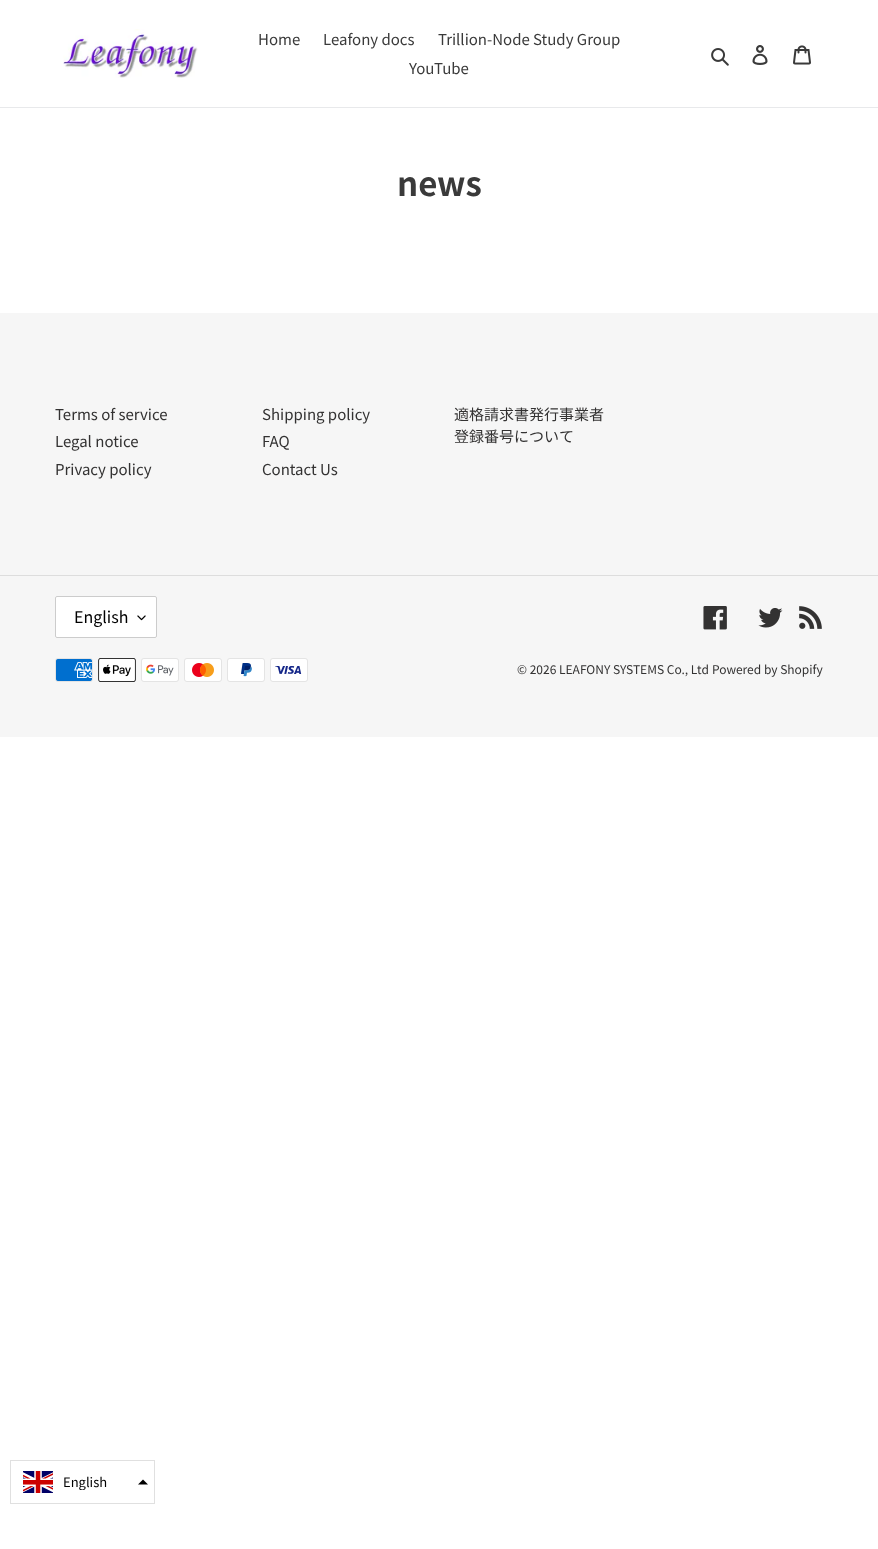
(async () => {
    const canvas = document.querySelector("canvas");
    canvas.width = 878;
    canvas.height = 1549;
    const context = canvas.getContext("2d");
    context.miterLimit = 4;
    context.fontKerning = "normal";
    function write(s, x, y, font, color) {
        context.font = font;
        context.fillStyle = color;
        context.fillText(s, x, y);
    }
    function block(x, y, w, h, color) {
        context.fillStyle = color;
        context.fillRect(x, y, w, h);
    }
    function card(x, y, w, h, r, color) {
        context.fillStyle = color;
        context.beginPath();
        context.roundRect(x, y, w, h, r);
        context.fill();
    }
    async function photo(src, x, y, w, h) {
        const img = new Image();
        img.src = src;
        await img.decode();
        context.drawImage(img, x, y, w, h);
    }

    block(0, 0, 878, 1549, "rgb(255, 255, 255)");
    block(0, 107, 878, 1, "rgb(232, 233, 235)");
    await photo("media/1.png", 63, 29, 135, 49);
    write("Home", 258, 45, "100 15px Noto Sans JP", "rgb(58, 58, 58)");
    write("Leafony docs", 323, 45, "100 15px Noto Sans JP", "rgb(58, 58, 58)");
    write("Trillion-Node Study Group", 438, 45, "100 15px Noto Sans JP", "rgb(58, 58, 58)");
    write("YouTube", 409, 74, "100 15px Noto Sans JP", "rgb(58, 58, 58)");
    await photo("media/2.png", 711, 48, 18, 18);
    await photo("media/3.png", 752, 45, 16, 20);
    await photo("media/4.png", 793, 45, 18, 20);
    write("news", 397, 196, "bold 33px Noto Sans JP", "rgb(58, 58, 58)");
    block(0, 313, 878, 424, "rgb(246, 246, 246)");
    write("Terms of service", 55, 420, "100 15px Noto Sans JP", "rgb(51, 50, 50)");
    write("Legal notice", 55, 447, "100 15px Noto Sans JP", "rgb(51, 50, 50)");
    write("Privacy policy", 55, 475, "100 15px Noto Sans JP", "rgb(51, 50, 50)");
    write("Shipping policy", 262, 420, "100 15px Noto Sans JP", "rgb(51, 50, 50)");
    write("FAQ", 262, 447, "100 15px Noto Sans JP", "rgb(51, 50, 50)");
    write("Contact Us", 262, 475, "100 15px Noto Sans JP", "rgb(51, 50, 50)");
    write("適格請求書発行事業者", 454, 420, "100 15px Noto Sans JP", "rgb(51, 50, 50)");
    write("登録番号について", 454, 442, "100 15px Noto Sans JP", "rgb(51, 50, 50)");
    block(0, 575, 878, 1, "rgb(221, 221, 221)");
    card(55, 596, 102, 42, 2, "rgb(255, 255, 255)");
    await photo("media/5.png", 137, 615, 9, 6);
    context.beginPath();
    context.roundRect(55.5, 596.5, 101, 41, 1.5);
    context.strokeStyle = "rgb(204, 204, 204)";
    context.stroke();
    write("English", 74, 623, "100 16px Noto Sans JP", "rgb(0, 0, 0)");
    await photo("media/6.png", 703, 606, 24, 24);
    await photo("media/7.png", 758, 608, 25, 20);
    await photo("media/8.png", 799, 606, 23, 23);
    await photo("media/9.png", 55, 658, 38, 24);
    await photo("media/10.png", 98, 658, 38, 24);
    await photo("media/11.png", 141, 658, 38, 24);
    await photo("media/12.png", 184, 658, 38, 24);
    await photo("media/13.png", 227, 658, 38, 24);
    await photo("media/14.png", 270, 658, 38, 24);
    write("© 2026 LEAFONY SYSTEMS Co., Ltd", 517, 674, "100 12px Noto Sans JP", "rgb(51, 50, 50)");
    write("Powered by Shopify", 712, 674, "100 12px Noto Sans JP", "rgb(51, 50, 50)");
    context.strokeStyle = "rgb(224, 224, 224)";
    context.strokeRect(10.5, 1460.5, 144, 43);
    await photo("media/15.png", 23, 1471, 30, 22);
    context.save();
    context.beginPath();
    context.rect(63, 1474, 66, 16);
    context.clip();
    write("English", 63, 1487, "100 13px Noto Sans JP", "rgb(0, 0, 0)");
    context.restore();
    context.fillStyle = "rgb(0, 0, 0)";
    context.beginPath();
    context.moveTo(138, 1484.5);
    context.lineTo(143, 1479.5);
    context.lineTo(148, 1484.5);
    context.closePath();
    context.fill("evenodd");
})();
